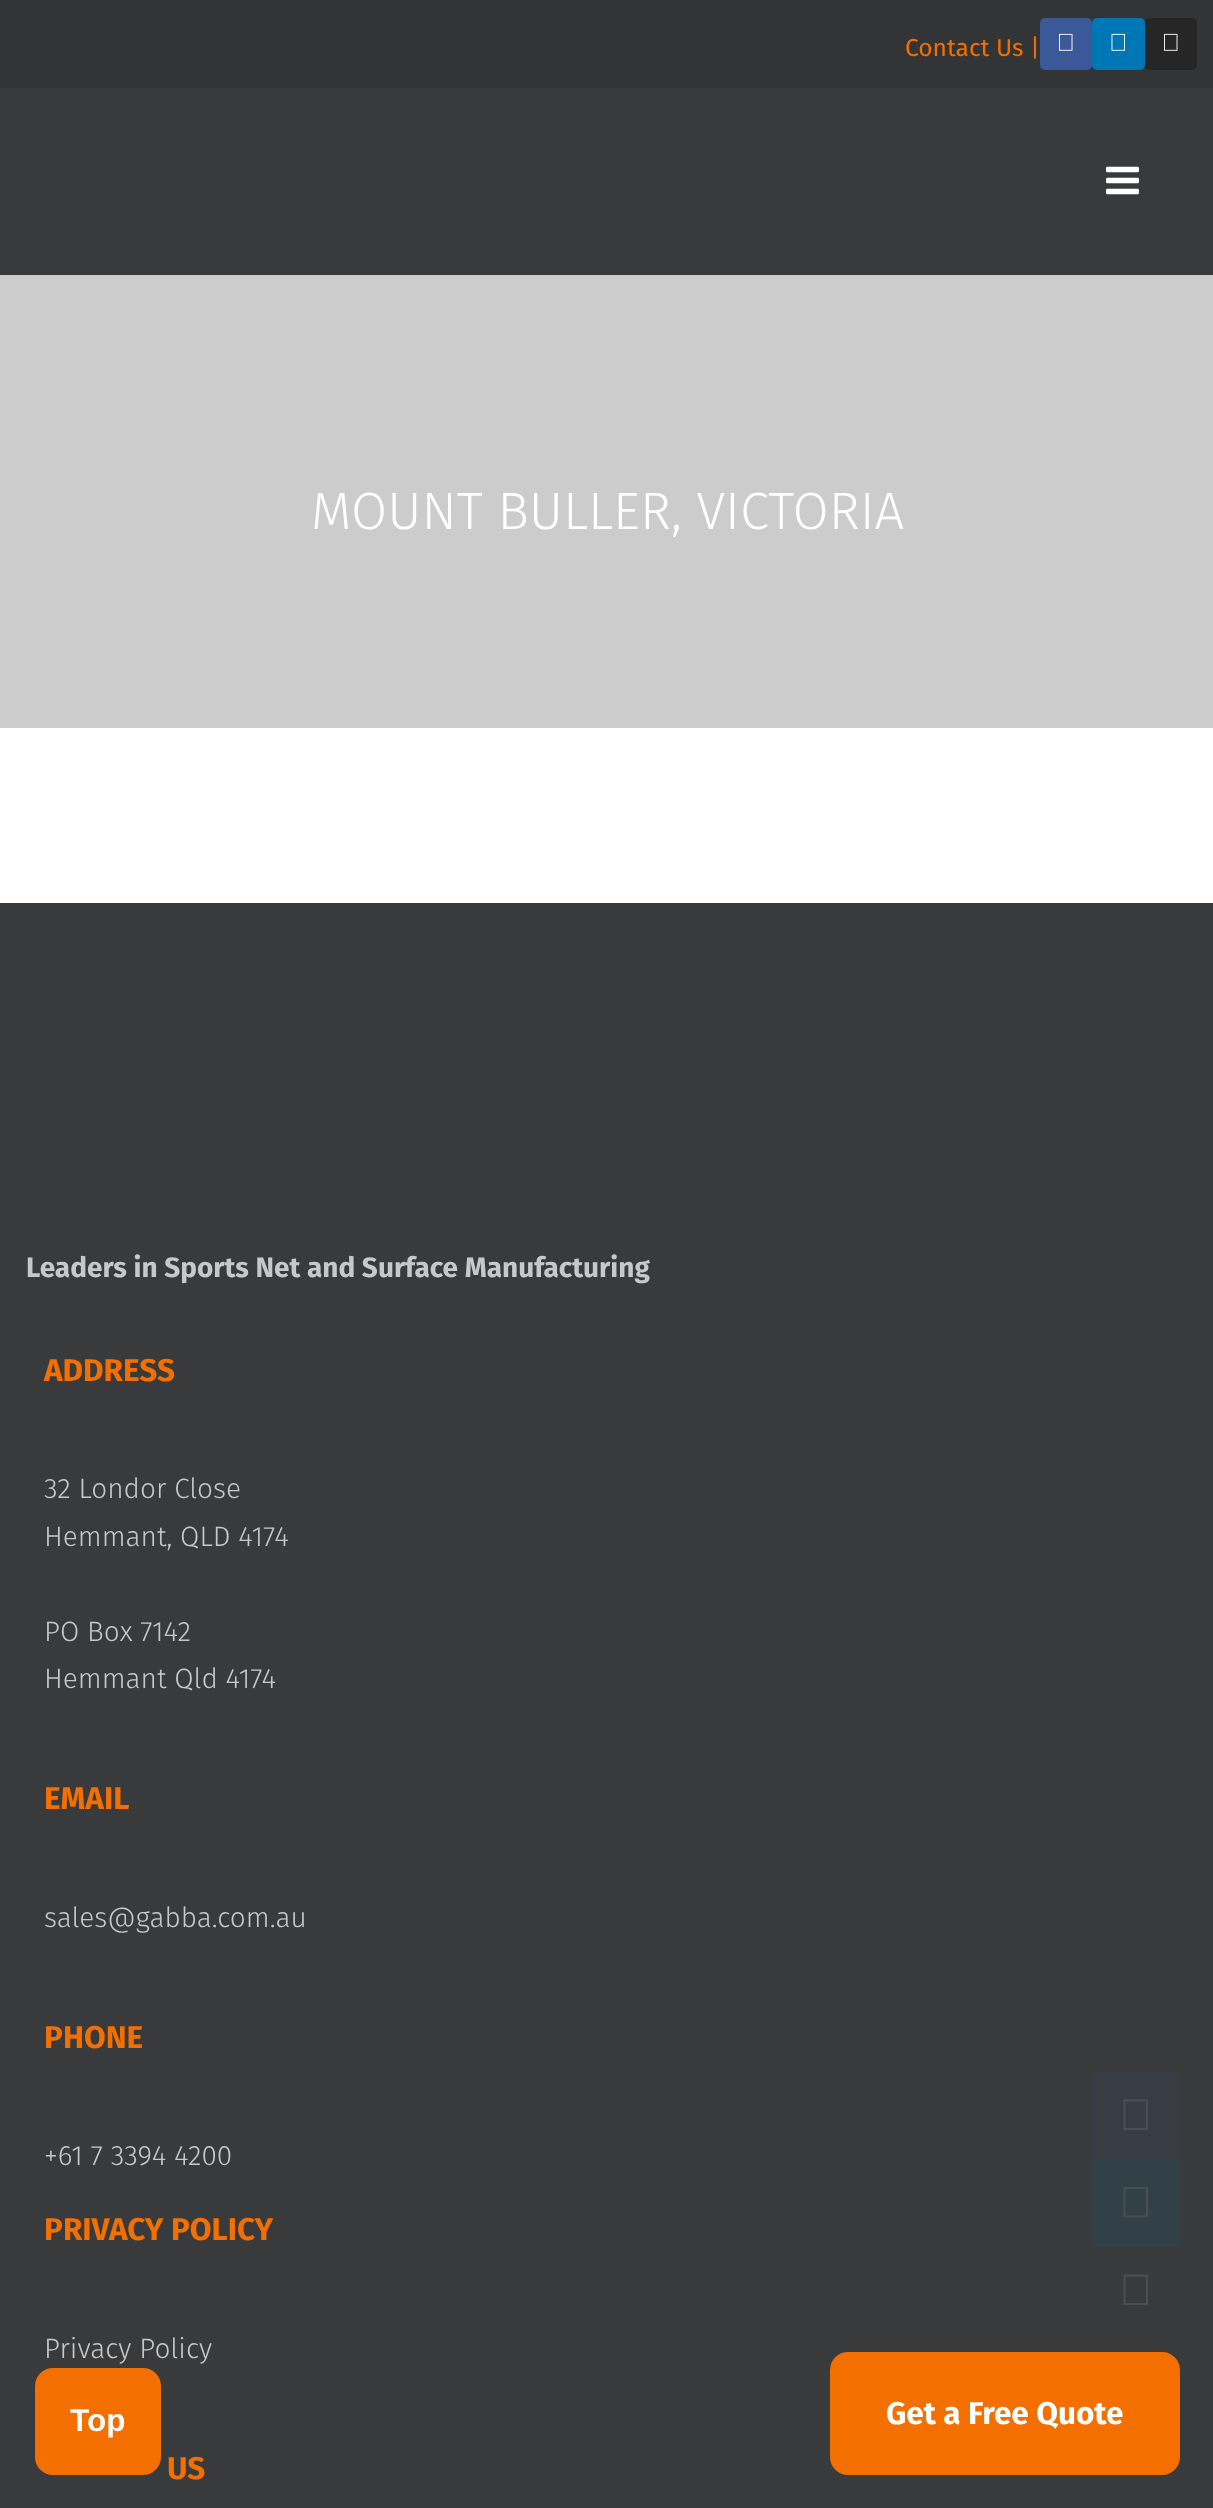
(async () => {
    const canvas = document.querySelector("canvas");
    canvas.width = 1213;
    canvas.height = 2508;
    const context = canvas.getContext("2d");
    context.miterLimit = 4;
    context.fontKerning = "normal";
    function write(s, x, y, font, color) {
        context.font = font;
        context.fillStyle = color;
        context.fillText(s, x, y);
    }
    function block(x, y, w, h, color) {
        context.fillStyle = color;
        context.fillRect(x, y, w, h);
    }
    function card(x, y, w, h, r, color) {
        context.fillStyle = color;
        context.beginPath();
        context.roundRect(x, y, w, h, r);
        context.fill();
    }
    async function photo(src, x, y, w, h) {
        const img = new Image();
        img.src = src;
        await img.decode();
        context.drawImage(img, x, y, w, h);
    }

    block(0, 0, 1213, 2508, "rgb(255, 255, 255)");
    block(0, 0, 1213, 88, "rgb(50, 52, 54)");
    write("Contact Us |", 905, 56, "24.5px Fira Sans", "rgb(243, 111, 0)");
    card(1040, 18, 52, 52, 5, "rgb(59, 89, 152)");
    await photo("media/1.png", 1059, 33, 14, 18);
    card(1092, 18, 53, 52, 5, "rgb(0, 119, 181)");
    await photo("media/2.png", 1111, 33, 14, 18);
    card(1145, 18, 52, 52, 5, "rgb(38, 38, 38)");
    await photo("media/3.png", 1164, 33, 14, 18);
    block(0, 88, 1213, 187, "rgb(56, 58, 60)");
    await photo("media/4.png", 1106, 166, 33, 29);
    block(0, 275, 1213, 453, "rgb(204, 204, 204)");
    write("MOUNT BULLER, VICTORIA", 311, 529, "300 52.5px Fira Sans", "rgb(255, 255, 255)");
    block(0, 903, 1213, 1605, "rgb(56, 58, 60)");
    write("Leaders in Sports Net and Surface Manufacturing", 26, 1277, "bold 28px Fira Sans", "rgb(200, 200, 201)");
    write("ADDRESS", 44, 1381, "bold 31.5px Fira Sans", "rgb(243, 111, 0)");
    write("32 Londor Close", 44, 1498, "300 28px Fira Sans", "rgb(200, 200, 201)");
    write("Hemmant, QLD 4174", 44, 1546, "300 28px Fira Sans", "rgb(200, 200, 201)");
    write("PO Box 7142", 44, 1641, "300 28px Fira Sans", "rgb(200, 200, 201)");
    write("Hemmant Qld 4174", 44, 1688, "300 28px Fira Sans", "rgb(200, 200, 201)");
    write("EMAIL", 44, 1809, "bold 31.5px Fira Sans", "rgb(243, 111, 0)");
    write("sales@gabba.com.au", 44, 1927, "300 28px Fira Sans", "rgb(200, 200, 201)");
    write("PHONE", 44, 2048, "bold 31.5px Fira Sans", "rgb(243, 111, 0)");
    write("+61 7 3394 4200", 44, 2165, "300 28px Fira Sans", "rgb(200, 200, 201)");
    write("PRIVACY POLICY", 44, 2240, "bold 31.5px Fira Sans", "rgb(243, 111, 0)");
    write("Privacy Policy", 44, 2358, "300 28px Fira Sans", "rgb(200, 200, 201)");
    write("US", 167, 2479, "bold 31.5px Fira Sans", "rgb(243, 111, 0)");
    block(1092, 2072, 88, 88, "rgb(56, 61, 69)");
    context.fillStyle = "rgb(76, 78, 80)";
    context.beginPath();
    context.moveTo(1123.5, 2099.5);
    context.lineTo(1148, 2099.5);
    context.lineTo(1148, 2130);
    context.lineTo(1123.5, 2130);
    context.closePath();
    context.moveTo(1125.5, 2101.5);
    context.lineTo(1125.5, 2128);
    context.lineTo(1146, 2128);
    context.lineTo(1146, 2101.5);
    context.closePath();
    context.fill();
    block(1092, 2160, 88, 87, "rgb(50, 64, 72)");
    context.fillStyle = "rgb(76, 78, 80)";
    context.beginPath();
    context.moveTo(1123.5, 2187);
    context.lineTo(1148, 2187);
    context.lineTo(1148, 2217);
    context.lineTo(1123.5, 2217);
    context.closePath();
    context.moveTo(1125.5, 2189);
    context.lineTo(1125.5, 2215.5);
    context.lineTo(1146, 2215.5);
    context.lineTo(1146, 2189);
    context.closePath();
    context.fill();
    context.beginPath();
    context.moveTo(1123.5, 2274.5);
    context.lineTo(1148, 2274.5);
    context.lineTo(1148, 2305);
    context.lineTo(1123.5, 2305);
    context.closePath();
    context.moveTo(1125.5, 2276.5);
    context.lineTo(1125.5, 2303);
    context.lineTo(1146, 2303);
    context.lineTo(1146, 2276.5);
    context.closePath();
    context.fill();
    card(35, 2368, 126, 107, 18, "rgb(243, 111, 0)");
    write("Top", 70, 2431, "bold 31.5px Liberation Sans", "rgb(255, 255, 255)");
    card(830, 2352, 350, 123, 18, "rgb(243, 111, 0)");
    write("Get a Free Quote", 886, 2424, "bold 31.5px Fira Sans", "rgb(255, 255, 255)");
})();
